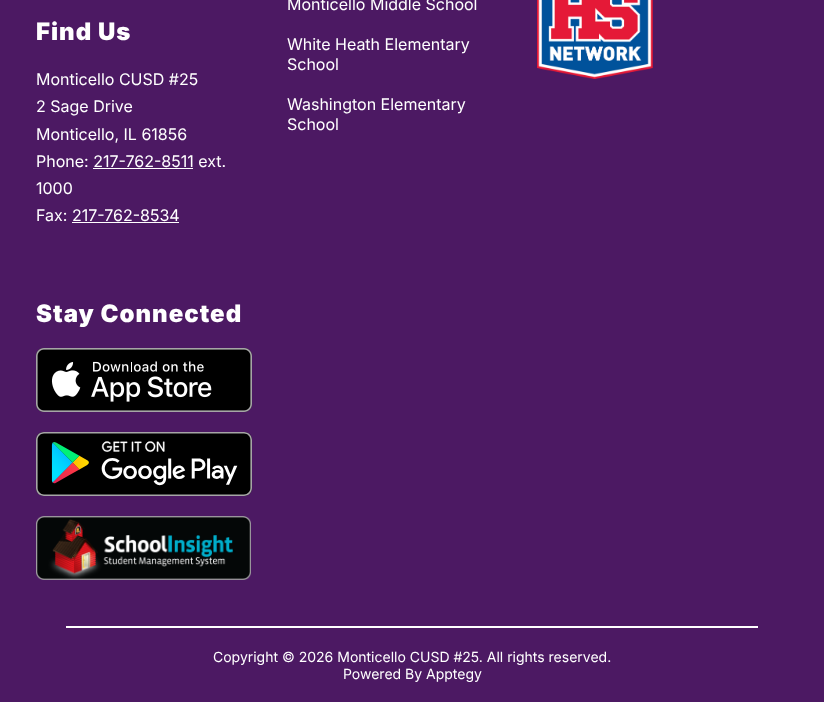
(async () => {
    const canvas = document.querySelector("canvas");
    canvas.width = 824;
    canvas.height = 702;
    const context = canvas.getContext("2d");
    context.miterLimit = 4;
    context.fontKerning = "normal";
    function write(s, x, y, font, color) {
        context.font = font;
        context.fillStyle = color;
        context.fillText(s, x, y);
    }
    function block(x, y, w, h, color) {
        context.fillStyle = color;
        context.fillRect(x, y, w, h);
    }
    async function photo(src, x, y, w, h) {
        const img = new Image();
        img.src = src;
        await img.decode();
        context.drawImage(img, x, y, w, h);
    }

    block(0, 0, 824, 702, "rgb(76, 25, 99)");
    context.letterSpacing = "1px";
    write("Find Us", 36, 40, "900 24px Inter", "rgb(255, 255, 255)");
    context.letterSpacing = "0px";
    write("Monticello CUSD #25", 36, 85, "16px Inter", "rgb(255, 255, 255)");
    write("2 Sage Drive", 36, 112, "16px Inter", "rgb(255, 255, 255)");
    write("Monticello, IL 61856", 36, 140, "16px Inter", "rgb(255, 255, 255)");
    write("Phone: 217-762-8511 ext.", 36, 167, "16px Inter", "rgb(255, 255, 255)");
    block(93, 168, 100, 1, "rgb(255, 255, 255)");
    write("1000", 36, 194, "16px Inter", "rgb(255, 255, 255)");
    write("Fax: 217-762-8534", 36, 221, "16px Inter", "rgb(255, 255, 255)");
    block(72, 222, 107, 1, "rgb(255, 255, 255)");
    write("Monticello Middle School", 287, 10, "16px Inter", "rgb(255, 255, 255)");
    write("White Heath Elementary", 287, 50, "16px Inter", "rgb(255, 255, 255)");
    write("School", 287, 70, "16px Inter", "rgb(255, 255, 255)");
    write("Washington Elementary", 287, 110, "16px Inter", "rgb(255, 255, 255)");
    write("School", 287, 130, "16px Inter", "rgb(255, 255, 255)");
    await photo("media/1.png", 537, 0, 116, 79);
    context.letterSpacing = "1px";
    write("Stay Connected", 36, 322, "900 24px Inter", "rgb(255, 255, 255)");
    await photo("media/2.png", 36, 348, 216, 64);
    await photo("media/3.png", 36, 432, 216, 64);
    await photo("media/4.png", 36, 516, 215, 64);
    block(66, 626, 692, 2, "rgb(255, 255, 255)");
    context.letterSpacing = "0px";
    write("Copyright © 2026 Monticello CUSD #25. All rights reserved.", 213, 662, "14px Inter", "rgb(255, 255, 255)");
    write("Powered By Apptegy", 343, 679, "14px Inter", "rgb(255, 255, 255)");
})();
